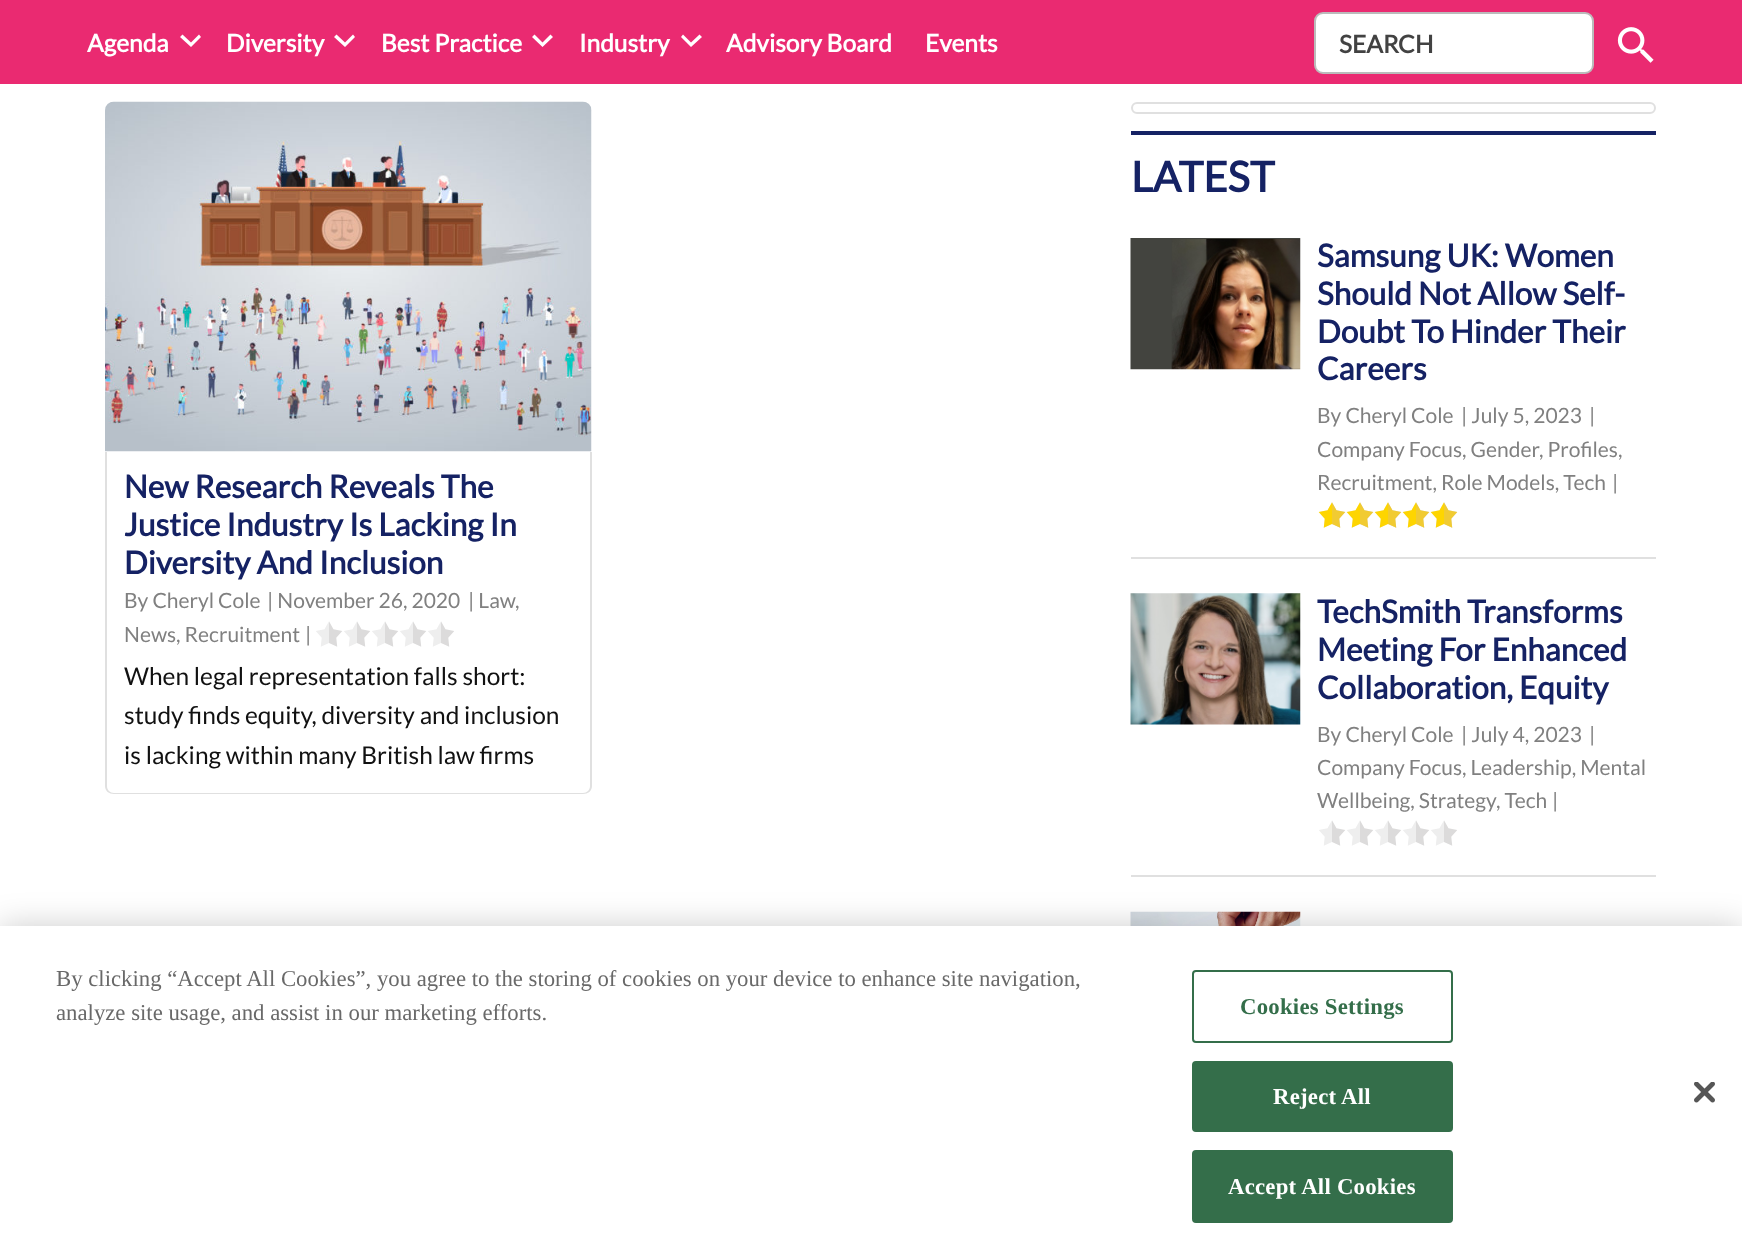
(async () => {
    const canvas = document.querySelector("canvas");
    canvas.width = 1742;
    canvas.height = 1257;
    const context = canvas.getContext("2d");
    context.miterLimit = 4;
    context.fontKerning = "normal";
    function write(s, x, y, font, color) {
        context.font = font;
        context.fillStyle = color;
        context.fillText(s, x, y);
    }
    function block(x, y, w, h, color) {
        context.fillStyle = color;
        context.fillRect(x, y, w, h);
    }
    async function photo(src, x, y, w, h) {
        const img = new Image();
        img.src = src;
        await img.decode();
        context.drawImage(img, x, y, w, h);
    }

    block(0, 0, 1742, 1257, "rgb(255, 255, 255)");
    block(0, 0, 88, 84, "rgb(234, 42, 113)");
    block(88, 0, 1654, 84, "rgb(234, 42, 113)");
    write("Agenda", 87, 52, "bold 24.5px Lato", "rgb(255, 255, 255)");
    context.beginPath();
    context.moveTo(182.5, 34.5);
    context.lineTo(191, 42.5);
    context.lineTo(199, 34.5);
    context.lineTo(201, 37);
    context.lineTo(191, 47);
    context.lineTo(180, 37);
    context.closePath();
    context.fill();
    write("Diversity", 226, 52, "bold 24.5px Lato", "rgb(255, 255, 255)");
    context.beginPath();
    context.moveTo(336.5, 34.5);
    context.lineTo(345, 42.5);
    context.lineTo(353, 34.5);
    context.lineTo(355, 37);
    context.lineTo(345, 47);
    context.lineTo(334, 37);
    context.closePath();
    context.fill();
    write("Best Practice", 381, 52, "bold 24.5px Lato", "rgb(255, 255, 255)");
    context.beginPath();
    context.moveTo(534.5, 34.5);
    context.lineTo(542.5, 42.5);
    context.lineTo(550.5, 34.5);
    context.lineTo(553, 37);
    context.lineTo(542.5, 47);
    context.lineTo(532, 37);
    context.closePath();
    context.fill();
    write("Industry", 579, 52, "bold 24.5px Lato", "rgb(255, 255, 255)");
    context.beginPath();
    context.moveTo(683, 34.5);
    context.lineTo(691, 42.5);
    context.lineTo(699.5, 34.5);
    context.lineTo(702, 37);
    context.lineTo(691, 47);
    context.lineTo(681, 37);
    context.closePath();
    context.fill();
    write("Advisory Board", 726, 52, "bold 24.5px Lato", "rgb(255, 255, 255)");
    write("Events", 925, 52, "bold 24.5px Lato", "rgb(255, 255, 255)");
    context.beginPath();
    context.roundRect(1315, 13, 278, 60, 8);
    context.fill();
    context.strokeStyle = "rgb(187, 187, 187)";
    context.lineWidth = 2;
    context.stroke();
    write("SEARCH", 1339, 53, "bold 24.5px Lato", "rgb(66, 66, 66)");
    await photo("media/1.png", 1617, 27, 37, 36);
    await photo("media/2.png", 105, 101, 487, 351);
    context.fillStyle = "rgb(224, 224, 224)";
    context.beginPath();
    context.moveTo(105, 452);
    context.lineTo(592, 452);
    context.lineTo(592, 786);
    context.bezierCurveTo(592, 791, 588, 794, 583, 794);
    context.lineTo(114, 794);
    context.bezierCurveTo(109, 794, 105, 791, 105, 786);
    context.closePath();
    context.moveTo(107, 452);
    context.lineTo(590, 452);
    context.lineTo(590, 786);
    context.bezierCurveTo(590, 790, 587, 793, 583, 793);
    context.lineTo(114, 793);
    context.bezierCurveTo(110, 793, 107, 790, 107, 786);
    context.closePath();
    context.fill("evenodd");
    write("New Research Reveals The", 124, 498, "bold 31.5px Lato", "rgb(21, 34, 100)");
    write("Justice Industry Is Lacking In", 124, 536, "bold 31.5px Lato", "rgb(21, 34, 100)");
    write("Diversity And Inclusion", 124, 574, "bold 31.5px Lato", "rgb(21, 34, 100)");
    write("By Cheryl Cole", 124, 608, "21px Lato", "rgb(128, 128, 128)");
    write("| November 26, 2020", 267, 608, "21px Lato", "rgb(128, 128, 128)");
    write("| Law", 468, 608, "21px Lato", "rgb(128, 128, 128)");
    write(",", 515, 608, "21px Lato", "rgb(128, 128, 128)");
    write("News, Recruitment", 124, 642, "21px Lato", "rgb(128, 128, 128)");
    write("|", 305, 642, "21px Lato", "rgb(128, 128, 128)");
    await photo("media/3.png", 316, 621, 138, 26);
    write("When legal representation falls short:", 124, 685, "24.5px Lato", "rgb(17, 17, 17)");
    write("study finds equity, diversity and inclusion", 124, 724, "24.5px Lato", "rgb(17, 17, 17)");
    write("is lacking within many British law firms", 124, 764, "24.5px Lato", "rgb(17, 17, 17)");
    context.beginPath();
    context.roundRect(1132, 103, 523, 10, 5);
    context.strokeStyle = "rgb(224, 224, 224)";
    context.stroke();
    block(1131, 131, 525, 4, "rgb(21, 34, 100)");
    write("LATEST", 1131, 192, "bold 42px Lato", "rgb(21, 34, 100)");
    block(1131, 557, 525, 2, "rgb(224, 224, 224)");
    await photo("media/4.png", 1130, 238, 171, 132);
    write("Samsung UK: Women", 1317, 267, "bold 31.5px Lato", "rgb(21, 34, 100)");
    write("Should Not Allow Self-", 1317, 305, "bold 31.5px Lato", "rgb(21, 34, 100)");
    write("Doubt To Hinder Their", 1317, 343, "bold 31.5px Lato", "rgb(21, 34, 100)");
    write("Careers", 1317, 380, "bold 31.5px Lato", "rgb(21, 34, 100)");
    write("By Cheryl Cole", 1317, 423, "21px Lato", "rgb(128, 128, 128)");
    write("| July 5, 2023", 1461, 423, "21px Lato", "rgb(128, 128, 128)");
    write("|", 1589, 423, "21px Lato", "rgb(128, 128, 128)");
    write("Company Focus, Gender", 1317, 457, "21px Lato", "rgb(128, 128, 128)");
    write(", Profiles,", 1539, 457, "21px Lato", "rgb(128, 128, 128)");
    write("Recruitment, Role Models, Tech", 1317, 490, "21px Lato", "rgb(128, 128, 128)");
    write("|", 1612, 490, "21px Lato", "rgb(128, 128, 128)");
    await photo("media/3.png", 1319, 502, 138, 26);
    await photo("media/5.png", 1318, 502, 140, 26);
    block(1131, 875, 525, 2, "rgb(224, 224, 224)");
    await photo("media/6.png", 1130, 593, 171, 132);
    write("TechSmith Transforms", 1317, 623, "bold 31.5px Lato", "rgb(21, 34, 100)");
    write("Meeting For Enhanced", 1317, 661, "bold 31.5px Lato", "rgb(21, 34, 100)");
    write("Collaboration, Equity", 1317, 699, "bold 31.5px Lato", "rgb(21, 34, 100)");
    write("By Cheryl Cole", 1317, 742, "21px Lato", "rgb(128, 128, 128)");
    write("| July 4, 2023", 1461, 742, "21px Lato", "rgb(128, 128, 128)");
    write("|", 1589, 742, "21px Lato", "rgb(128, 128, 128)");
    write("Company Focus, Leadership, Mental", 1317, 775, "21px Lato", "rgb(128, 128, 128)");
    write("Wellbeing, Strategy", 1317, 808, "21px Lato", "rgb(128, 128, 128)");
    write(", Tech", 1496, 808, "21px Lato", "rgb(128, 128, 128)");
    write("|", 1552, 808, "21px Lato", "rgb(128, 128, 128)");
    await photo("media/3.png", 1319, 820, 138, 26);
    await photo("media/7.png", 1130, 911, 171, 15);
    context.fillStyle = "rgba(0, 0, 0, 0.2)";
    context.filter = "blur(16px)";
    context.beginPath();
    context.rect(0, 926, 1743, 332);
    context.fill();
    context.filter = "none";
    block(0, 926, 1742, 331, "rgb(255, 255, 255)");
    write("By clicking “Accept All Cookies”, you agree to the storing of cookies on your device to enhance site navigation,", 56, 986, "22.75px Liberation Serif", "rgb(105, 105, 105)");
    write("analyze site usage, and assist in our marketing efforts.", 56, 1020, "22.75px Liberation Serif", "rgb(105, 105, 105)");
    context.beginPath();
    context.roundRect(1193, 971, 259, 71, 3);
    context.strokeStyle = "rgb(52, 110, 74)";
    context.stroke();
    context.letterSpacing = "0.25px";
    write("Cookies Settings", 1240, 1014, "bold 22.75px Liberation Serif", "rgb(52, 110, 74)");
    context.beginPath();
    context.roundRect(1193, 1062, 259, 69, 3);
    context.fill();
    context.stroke();
    write("Reject All", 1273, 1104, "bold 22.75px Liberation Serif", "rgb(255, 255, 255)");
    context.fillStyle = "rgb(52, 110, 74)";
    context.beginPath();
    context.roundRect(1193, 1151, 259, 71, 3);
    context.fill();
    context.stroke();
    write("Accept All Cookies", 1228, 1194, "bold 22.75px Liberation Serif", "rgb(255, 255, 255)");
    await photo("media/8.png", 1694, 1082, 21, 21);
})();
